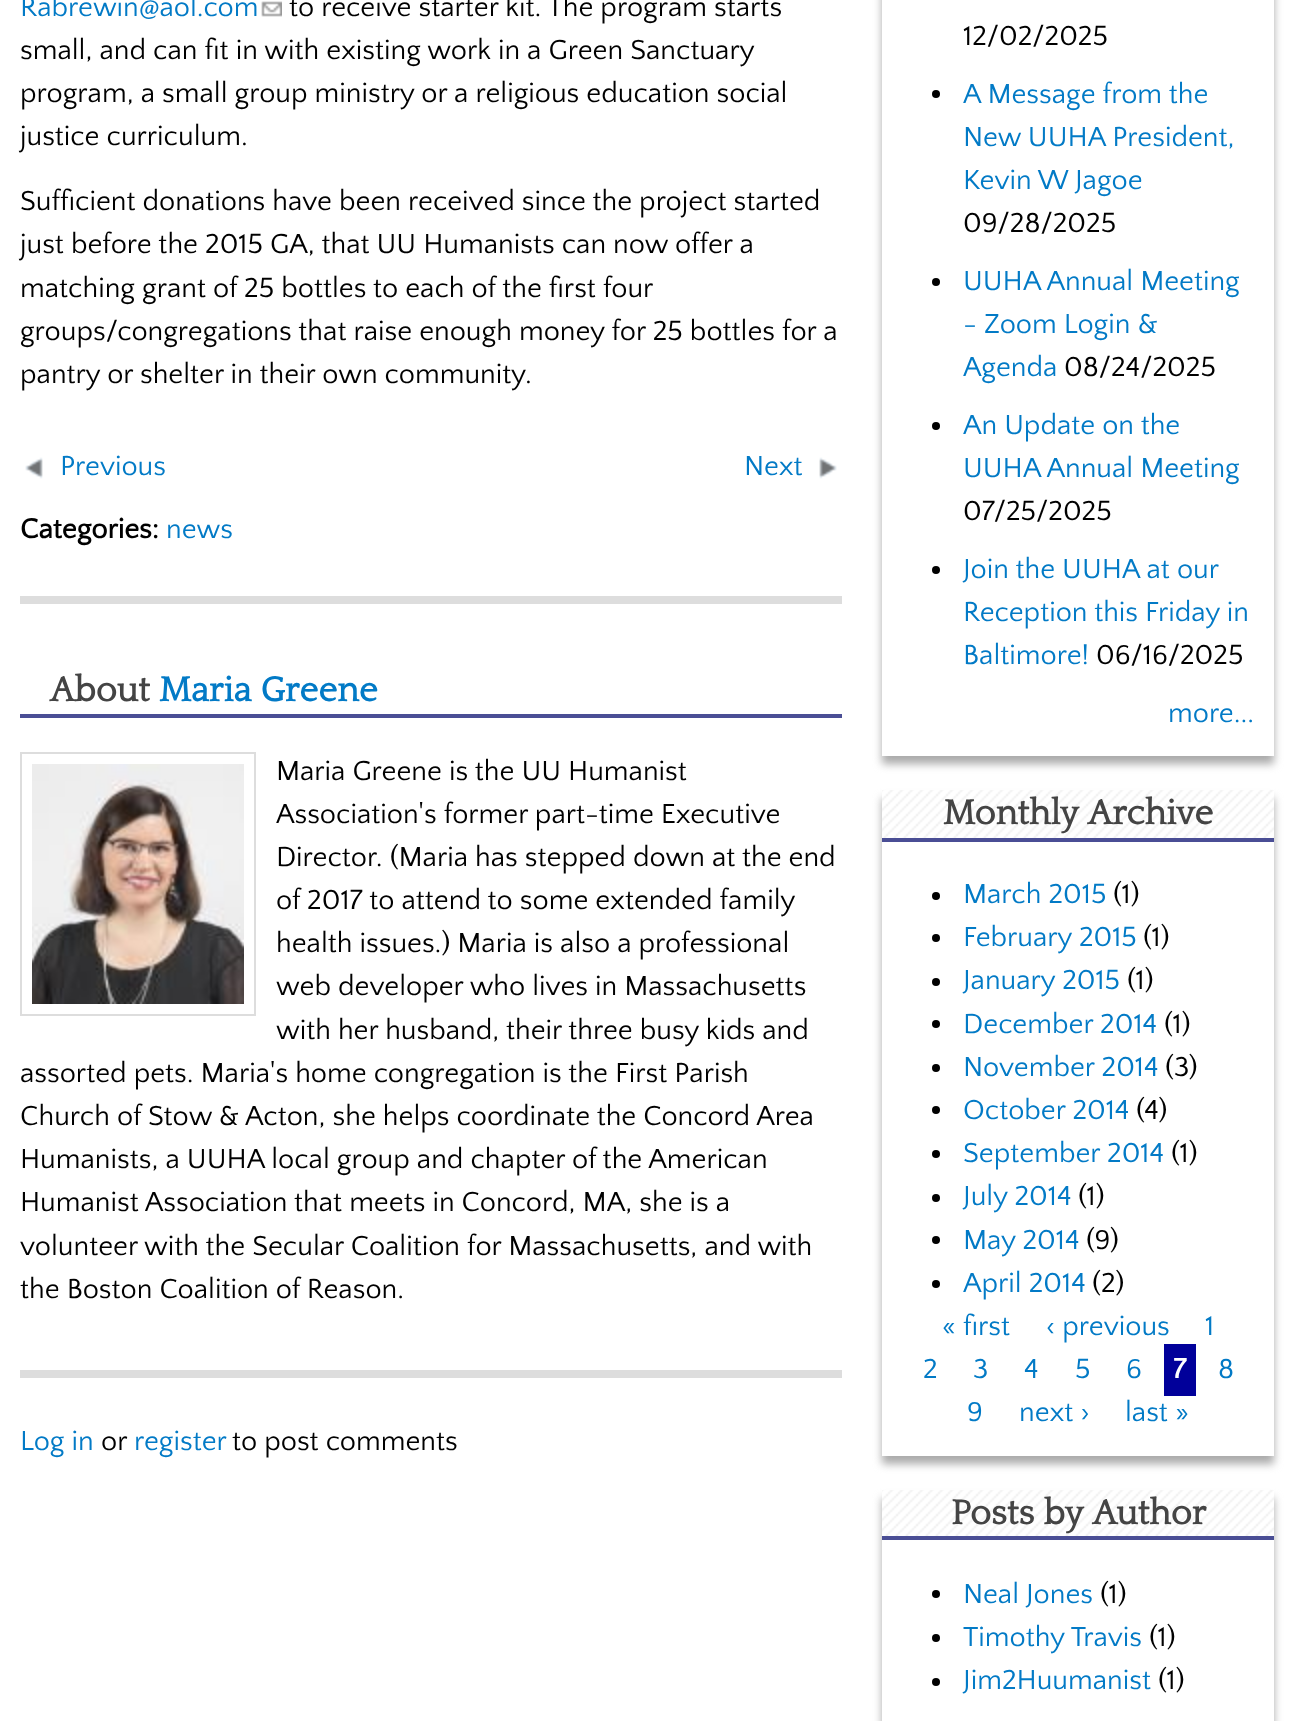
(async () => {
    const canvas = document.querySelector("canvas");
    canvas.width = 1294;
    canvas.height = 1721;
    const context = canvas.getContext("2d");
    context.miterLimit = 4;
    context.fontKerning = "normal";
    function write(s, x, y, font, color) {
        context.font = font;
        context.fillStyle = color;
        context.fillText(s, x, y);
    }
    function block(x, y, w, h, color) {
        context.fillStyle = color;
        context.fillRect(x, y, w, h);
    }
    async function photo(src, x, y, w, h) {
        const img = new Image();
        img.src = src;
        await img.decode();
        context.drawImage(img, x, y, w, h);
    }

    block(0, 0, 1294, 1721, "rgb(255, 255, 255)");
    write("Rabrewin@aol.com", 20, 16, "28.8px Quattrocento Sans", "rgb(2, 122, 198)");
    await photo("media/1.png", 261, 1, 21, 16);
    write("to receive starter kit. The program starts", 289, 16, "28.8px Quattrocento Sans", "rgb(0, 0, 0)");
    write("small, and can fit in with existing work in a Green Sanctuary", 20, 59, "28.8px Quattrocento Sans", "rgb(0, 0, 0)");
    write("program, a small group ministry or a religious education social", 20, 102, "28.8px Quattrocento Sans", "rgb(0, 0, 0)");
    write("justice curriculum.", 20, 145, "28.8px Quattrocento Sans", "rgb(0, 0, 0)");
    write("Sufficient donations have been received since the project started", 20, 210, "28.8px Quattrocento Sans", "rgb(0, 0, 0)");
    write("just before the 2015 GA, that UU Humanists can now offer a", 20, 253, "28.8px Quattrocento Sans", "rgb(0, 0, 0)");
    write("matching grant of 25 bottles to each of the first four", 20, 297, "28.8px Quattrocento Sans", "rgb(0, 0, 0)");
    write("groups/congregations that raise enough money for 25 bottles for a", 20, 340, "28.8px Quattrocento Sans", "rgb(0, 0, 0)");
    write("pantry or shelter in their own community.", 20, 383, "28.8px Quattrocento Sans", "rgb(0, 0, 0)");
    await photo("media/2.png", 25, 457, 18, 22);
    write("Previous", 60, 475, "28.8px Quattrocento Sans", "rgb(2, 122, 198)");
    await photo("media/3.png", 819, 457, 18, 22);
    write("Next", 744, 475, "28.8px Quattrocento Sans", "rgb(2, 122, 198)");
    write("Categories:", 20, 538, "bold 28.8px Quattrocento Sans", "rgb(0, 0, 0)");
    write("news", 166, 538, "28.8px Quattrocento Sans", "rgb(2, 122, 198)");
    block(20, 596, 822, 8, "rgb(221, 221, 221)");
    block(20, 1370, 822, 8, "rgb(221, 221, 221)");
    block(20, 714, 822, 4, "rgb(74, 78, 149)");
    write("About", 50, 701, "bold 36px Quattrocento", "rgb(68, 68, 68)");
    write("Maria Greene", 159, 701, "bold 36px Quattrocento", "rgb(2, 122, 198)");
    context.strokeStyle = "rgb(221, 221, 221)";
    context.lineWidth = 2;
    context.strokeRect(21, 753, 234, 262);
    await photo("media/4.png", 32, 764, 212, 240);
    write("Maria Greene is the UU Humanist", 276, 780, "28.8px Quattrocento Sans", "rgb(0, 0, 0)");
    write("Association's former part-time Executive", 276, 823, "28.8px Quattrocento Sans", "rgb(0, 0, 0)");
    write("Director. (Maria has stepped down at the end", 276, 866, "28.8px Quattrocento Sans", "rgb(0, 0, 0)");
    write("of 2017 to attend to some extended family", 276, 909, "28.8px Quattrocento Sans", "rgb(0, 0, 0)");
    write("health issues.) Maria is also a professional", 276, 952, "28.8px Quattrocento Sans", "rgb(0, 0, 0)");
    write("web developer who lives in Massachusetts", 276, 995, "28.8px Quattrocento Sans", "rgb(0, 0, 0)");
    write("with her husband, their three busy kids and", 276, 1039, "28.8px Quattrocento Sans", "rgb(0, 0, 0)");
    write("assorted pets. Maria's home congregation is the First Parish", 20, 1082, "28.8px Quattrocento Sans", "rgb(0, 0, 0)");
    write("Church of Stow & Acton, she helps coordinate the Concord Area", 20, 1125, "28.8px Quattrocento Sans", "rgb(0, 0, 0)");
    write("Humanists, a UUHA local group and chapter of the American", 20, 1168, "28.8px Quattrocento Sans", "rgb(0, 0, 0)");
    write("Humanist Association that meets in Concord, MA, she is a", 20, 1211, "28.8px Quattrocento Sans", "rgb(0, 0, 0)");
    write("volunteer with the Secular Coalition for Massachusetts, and with", 20, 1255, "28.8px Quattrocento Sans", "rgb(0, 0, 0)");
    write("the Boston Coalition of Reason.", 20, 1298, "28.8px Quattrocento Sans", "rgb(0, 0, 0)");
    write("Log in", 20, 1450, "28.8px Quattrocento Sans", "rgb(2, 122, 198)");
    write("or", 101, 1450, "28.8px Quattrocento Sans", "rgb(0, 0, 0)");
    write("register", 134, 1450, "28.8px Quattrocento Sans", "rgb(2, 122, 198)");
    write("to post comments", 232, 1450, "28.8px Quattrocento Sans", "rgb(0, 0, 0)");
    context.save();
    context.beginPath();
    context.moveTo(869, 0);
    context.lineTo(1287, 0);
    context.lineTo(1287, 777);
    context.lineTo(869, 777);
    context.closePath();
    context.moveTo(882, -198);
    context.lineTo(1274, -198);
    context.lineTo(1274, 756);
    context.lineTo(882, 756);
    context.closePath();
    context.clip("evenodd");
    context.fillStyle = "rgb(170, 170, 170)";
    context.filter = "blur(4px)";
    context.beginPath();
    context.rect(882, -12, 392, 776);
    context.fill();
    context.filter = "none";
    context.restore();
    write("12/02/2025", 963, 45, "28.8px Quattrocento Sans", "rgb(0, 0, 0)");
    context.beginPath();
    context.arc(936, 94, 4, 0, Math.PI * 2);
    context.fill();
    write("A Message from the", 963, 103, "28.8px Quattrocento Sans", "rgb(2, 122, 198)");
    write("New UUHA President,", 963, 146, "28.8px Quattrocento Sans", "rgb(2, 122, 198)");
    write("Kevin W Jagoe", 963, 189, "28.8px Quattrocento Sans", "rgb(2, 122, 198)");
    write("09/28/2025", 963, 232, "28.8px Quattrocento Sans", "rgb(0, 0, 0)");
    context.beginPath();
    context.arc(936, 282, 4, 0, Math.PI * 2);
    context.fill();
    write("UUHA Annual Meeting", 963, 290, "28.8px Quattrocento Sans", "rgb(2, 122, 198)");
    write("- Zoom Login &", 963, 333, "28.8px Quattrocento Sans", "rgb(2, 122, 198)");
    write("Agenda", 963, 376, "28.8px Quattrocento Sans", "rgb(2, 122, 198)");
    write("08/24/2025", 1064, 376, "28.8px Quattrocento Sans", "rgb(0, 0, 0)");
    context.beginPath();
    context.arc(936, 426, 4, 0, Math.PI * 2);
    context.fill();
    write("An Update on the", 963, 434, "28.8px Quattrocento Sans", "rgb(2, 122, 198)");
    write("UUHA Annual Meeting", 963, 477, "28.8px Quattrocento Sans", "rgb(2, 122, 198)");
    write("07/25/2025", 963, 520, "28.8px Quattrocento Sans", "rgb(0, 0, 0)");
    context.beginPath();
    context.arc(936, 570, 4, 0, Math.PI * 2);
    context.fill();
    write("Join the UUHA at our", 963, 578, "28.8px Quattrocento Sans", "rgb(2, 122, 198)");
    write("Reception this Friday in", 963, 621, "28.8px Quattrocento Sans", "rgb(2, 122, 198)");
    write("Baltimore!", 963, 664, "28.8px Quattrocento Sans", "rgb(2, 122, 198)");
    write("06/16/2025", 1096, 664, "28.8px Quattrocento Sans", "rgb(0, 0, 0)");
    write("more...", 1168, 722, "28.8px Quattrocento Sans", "rgb(2, 122, 198)");
    context.save();
    context.beginPath();
    context.moveTo(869, 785);
    context.lineTo(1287, 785);
    context.lineTo(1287, 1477);
    context.lineTo(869, 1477);
    context.closePath();
    context.moveTo(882, 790);
    context.lineTo(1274, 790);
    context.lineTo(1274, 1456);
    context.lineTo(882, 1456);
    context.closePath();
    context.clip("evenodd");
    context.fillStyle = "rgb(170, 170, 170)";
    context.filter = "blur(4px)";
    context.beginPath();
    context.rect(882, 798, 392, 666);
    context.fill();
    context.filter = "none";
    context.restore();
    await photo("media/5.png", 882, 790, 392, 48);
    block(882, 838, 392, 4, "rgb(74, 78, 149)");
    write("Monthly Archive", 943, 824, "bold 36px Quattrocento", "rgb(68, 68, 68)");
    context.fillStyle = "rgb(0, 0, 0)";
    context.beginPath();
    context.arc(936, 896, 4, 0, Math.PI * 2);
    context.fill();
    write("March 2015", 963, 903, "28.8px Quattrocento Sans", "rgb(2, 122, 198)");
    write("(1)", 1113, 903, "28.8px Quattrocento Sans", "rgb(0, 0, 0)");
    context.beginPath();
    context.arc(936, 938, 4, 0, Math.PI * 2);
    context.fill();
    write("February 2015", 963, 946, "28.8px Quattrocento Sans", "rgb(2, 122, 198)");
    write("(1)", 1143, 946, "28.8px Quattrocento Sans", "rgb(0, 0, 0)");
    context.beginPath();
    context.arc(936, 982, 4, 0, Math.PI * 2);
    context.fill();
    write("January 2015", 963, 989, "28.8px Quattrocento Sans", "rgb(2, 122, 198)");
    write("(1)", 1127, 989, "28.8px Quattrocento Sans", "rgb(0, 0, 0)");
    context.beginPath();
    context.arc(936, 1024, 4, 0, Math.PI * 2);
    context.fill();
    write("December 2014", 963, 1033, "28.8px Quattrocento Sans", "rgb(2, 122, 198)");
    write("(1)", 1164, 1033, "28.8px Quattrocento Sans", "rgb(0, 0, 0)");
    context.beginPath();
    context.arc(936, 1068, 4, 0, Math.PI * 2);
    context.fill();
    write("November 2014", 963, 1076, "28.8px Quattrocento Sans", "rgb(2, 122, 198)");
    write("(3)", 1165, 1076, "28.8px Quattrocento Sans", "rgb(0, 0, 0)");
    context.beginPath();
    context.arc(936, 1110, 4, 0, Math.PI * 2);
    context.fill();
    write("October 2014", 963, 1119, "28.8px Quattrocento Sans", "rgb(2, 122, 198)");
    write("(4)", 1136, 1119, "28.8px Quattrocento Sans", "rgb(0, 0, 0)");
    context.beginPath();
    context.arc(936, 1154, 4, 0, Math.PI * 2);
    context.fill();
    write("September 2014", 963, 1162, "28.8px Quattrocento Sans", "rgb(2, 122, 198)");
    write("(1)", 1171, 1162, "28.8px Quattrocento Sans", "rgb(0, 0, 0)");
    context.beginPath();
    context.arc(936, 1198, 4, 0, Math.PI * 2);
    context.fill();
    write("July 2014", 963, 1205, "28.8px Quattrocento Sans", "rgb(2, 122, 198)");
    write("(1)", 1078, 1205, "28.8px Quattrocento Sans", "rgb(0, 0, 0)");
    context.beginPath();
    context.arc(936, 1240, 4, 0, Math.PI * 2);
    context.fill();
    write("May 2014", 963, 1249, "28.8px Quattrocento Sans", "rgb(2, 122, 198)");
    write("(9)", 1086, 1249, "28.8px Quattrocento Sans", "rgb(0, 0, 0)");
    context.beginPath();
    context.arc(936, 1284, 4, 0, Math.PI * 2);
    context.fill();
    write("April 2014", 963, 1292, "28.8px Quattrocento Sans", "rgb(2, 122, 198)");
    write("(2)", 1092, 1292, "28.8px Quattrocento Sans", "rgb(0, 0, 0)");
    write("« first", 942, 1335, "28.8px Quattrocento Sans", "rgb(2, 122, 198)");
    write("‹ previous", 1046, 1335, "28.8px Quattrocento Sans", "rgb(2, 122, 198)");
    write("1", 1205, 1335, "28.8px Quattrocento Sans", "rgb(2, 122, 198)");
    write("2", 923, 1378, "28.8px Quattrocento Sans", "rgb(2, 122, 198)");
    write("3", 973, 1378, "28.8px Quattrocento Sans", "rgb(2, 122, 198)");
    write("4", 1024, 1378, "28.8px Quattrocento Sans", "rgb(2, 122, 198)");
    write("5", 1075, 1378, "28.8px Quattrocento Sans", "rgb(2, 122, 198)");
    write("6", 1126, 1378, "28.8px Quattrocento Sans", "rgb(2, 122, 198)");
    block(1164, 1344, 32, 52, "rgb(1, 0, 154)");
    write("7", 1173, 1378, "bold 28.8px Quattrocento Sans", "rgb(255, 255, 255)");
    write("8", 1218, 1378, "28.8px Quattrocento Sans", "rgb(2, 122, 198)");
    write("9", 967, 1421, "28.8px Quattrocento Sans", "rgb(2, 122, 198)");
    write("next ›", 1019, 1421, "28.8px Quattrocento Sans", "rgb(2, 122, 198)");
    write("last »", 1125, 1421, "28.8px Quattrocento Sans", "rgb(2, 122, 198)");
    context.save();
    context.beginPath();
    context.moveTo(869, 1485);
    context.lineTo(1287, 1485);
    context.lineTo(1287, 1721);
    context.lineTo(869, 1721);
    context.closePath();
    context.moveTo(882, 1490);
    context.lineTo(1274, 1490);
    context.lineTo(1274, 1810);
    context.lineTo(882, 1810);
    context.closePath();
    context.clip("evenodd");
    context.fillStyle = "rgb(170, 170, 170)";
    context.filter = "blur(4px)";
    context.beginPath();
    context.rect(882, 1498, 392, 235);
    context.fill();
    context.filter = "none";
    context.restore();
    await photo("media/6.png", 882, 1490, 392, 46);
    block(882, 1536, 392, 4, "rgb(74, 78, 149)");
    write("Posts by Author", 951, 1524, "bold 36px Quattrocento", "rgb(68, 68, 68)");
    context.fillStyle = "rgb(0, 0, 0)";
    context.beginPath();
    context.arc(936, 1594, 4, 0, Math.PI * 2);
    context.fill();
    write("Neal Jones", 963, 1603, "28.8px Quattrocento Sans", "rgb(2, 122, 198)");
    write("(1)", 1100, 1603, "28.8px Quattrocento Sans", "rgb(0, 0, 0)");
    context.beginPath();
    context.arc(936, 1638, 4, 0, Math.PI * 2);
    context.fill();
    write("Timothy Travis", 963, 1646, "28.8px Quattrocento Sans", "rgb(2, 122, 198)");
    write("(1)", 1149, 1646, "28.8px Quattrocento Sans", "rgb(0, 0, 0)");
    context.beginPath();
    context.arc(936, 1682, 4, 0, Math.PI * 2);
    context.fill();
    write("Jim2Huumanist", 963, 1689, "28.8px Quattrocento Sans", "rgb(2, 122, 198)");
    write("(1)", 1158, 1689, "28.8px Quattrocento Sans", "rgb(0, 0, 0)");
})();
